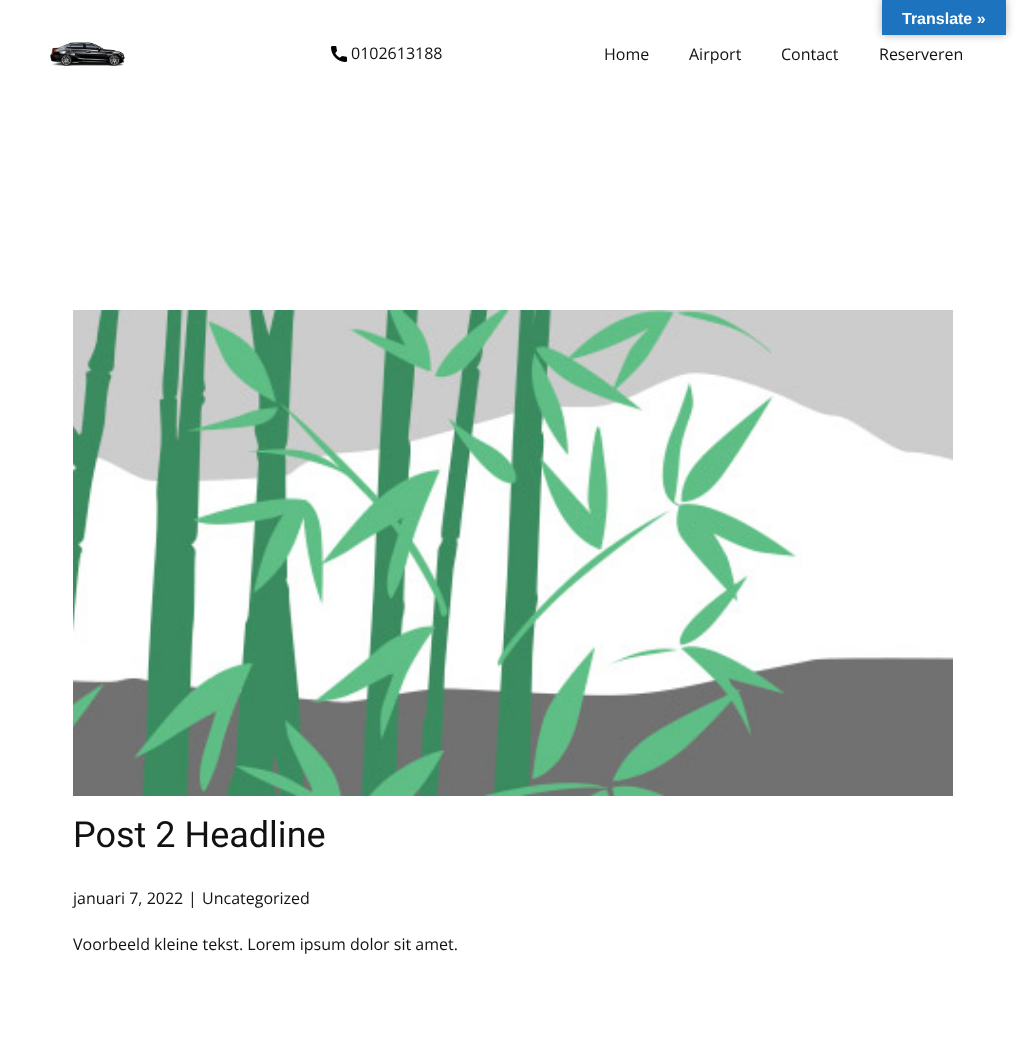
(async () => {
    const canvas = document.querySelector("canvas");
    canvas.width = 1026;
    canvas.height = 1047;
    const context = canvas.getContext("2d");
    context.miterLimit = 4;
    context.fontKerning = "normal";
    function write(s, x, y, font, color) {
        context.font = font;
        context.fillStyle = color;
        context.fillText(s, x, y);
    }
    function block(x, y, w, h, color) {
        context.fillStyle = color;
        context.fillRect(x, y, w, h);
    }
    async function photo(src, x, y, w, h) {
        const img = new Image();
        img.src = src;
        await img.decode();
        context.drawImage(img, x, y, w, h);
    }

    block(0, 0, 1026, 1047, "rgb(255, 255, 255)");
    context.fillStyle = "rgba(0, 0, 0, 0.3)";
    context.filter = "blur(4.5px)";
    context.beginPath();
    context.rect(882, 0, 124, 35);
    context.fill();
    context.filter = "none";
    block(882, 0, 124, 35, "rgb(30, 115, 190)");
    write("Translate »", 902, 24, "bold 16px Liberation Sans", "rgb(255, 255, 255)");
    await photo("media/1.png", 50, 42, 75, 24);
    await photo("media/2.png", 331, 46, 16, 16);
    write("0102613188", 351, 59, "16px Open Sans", "rgb(17, 17, 17)");
    write("Home", 604, 60, "16px Open Sans", "rgb(17, 17, 17)");
    write("Airport", 689, 60, "16px Open Sans", "rgb(17, 17, 17)");
    write("Contact", 781, 60, "16px Open Sans", "rgb(17, 17, 17)");
    write("Reserveren", 879, 60, "16px Open Sans", "rgb(17, 17, 17)");
    await photo("media/3.png", 73, 310, 880, 486);
    write("Post 2 Headline", 73, 847, "36px Roboto", "rgb(17, 17, 17)");
    write("januari 7, 2022", 73, 904, "16px Open Sans", "rgb(17, 17, 17)");
    write("|", 188, 904, "16px Open Sans", "rgb(17, 17, 17)");
    write("Uncategorized", 202, 904, "16px Open Sans", "rgb(17, 17, 17)");
    write("Voorbeeld kleine tekst. Lorem ipsum dolor sit amet.", 73, 950, "16px Open Sans", "rgb(17, 17, 17)");
})();
